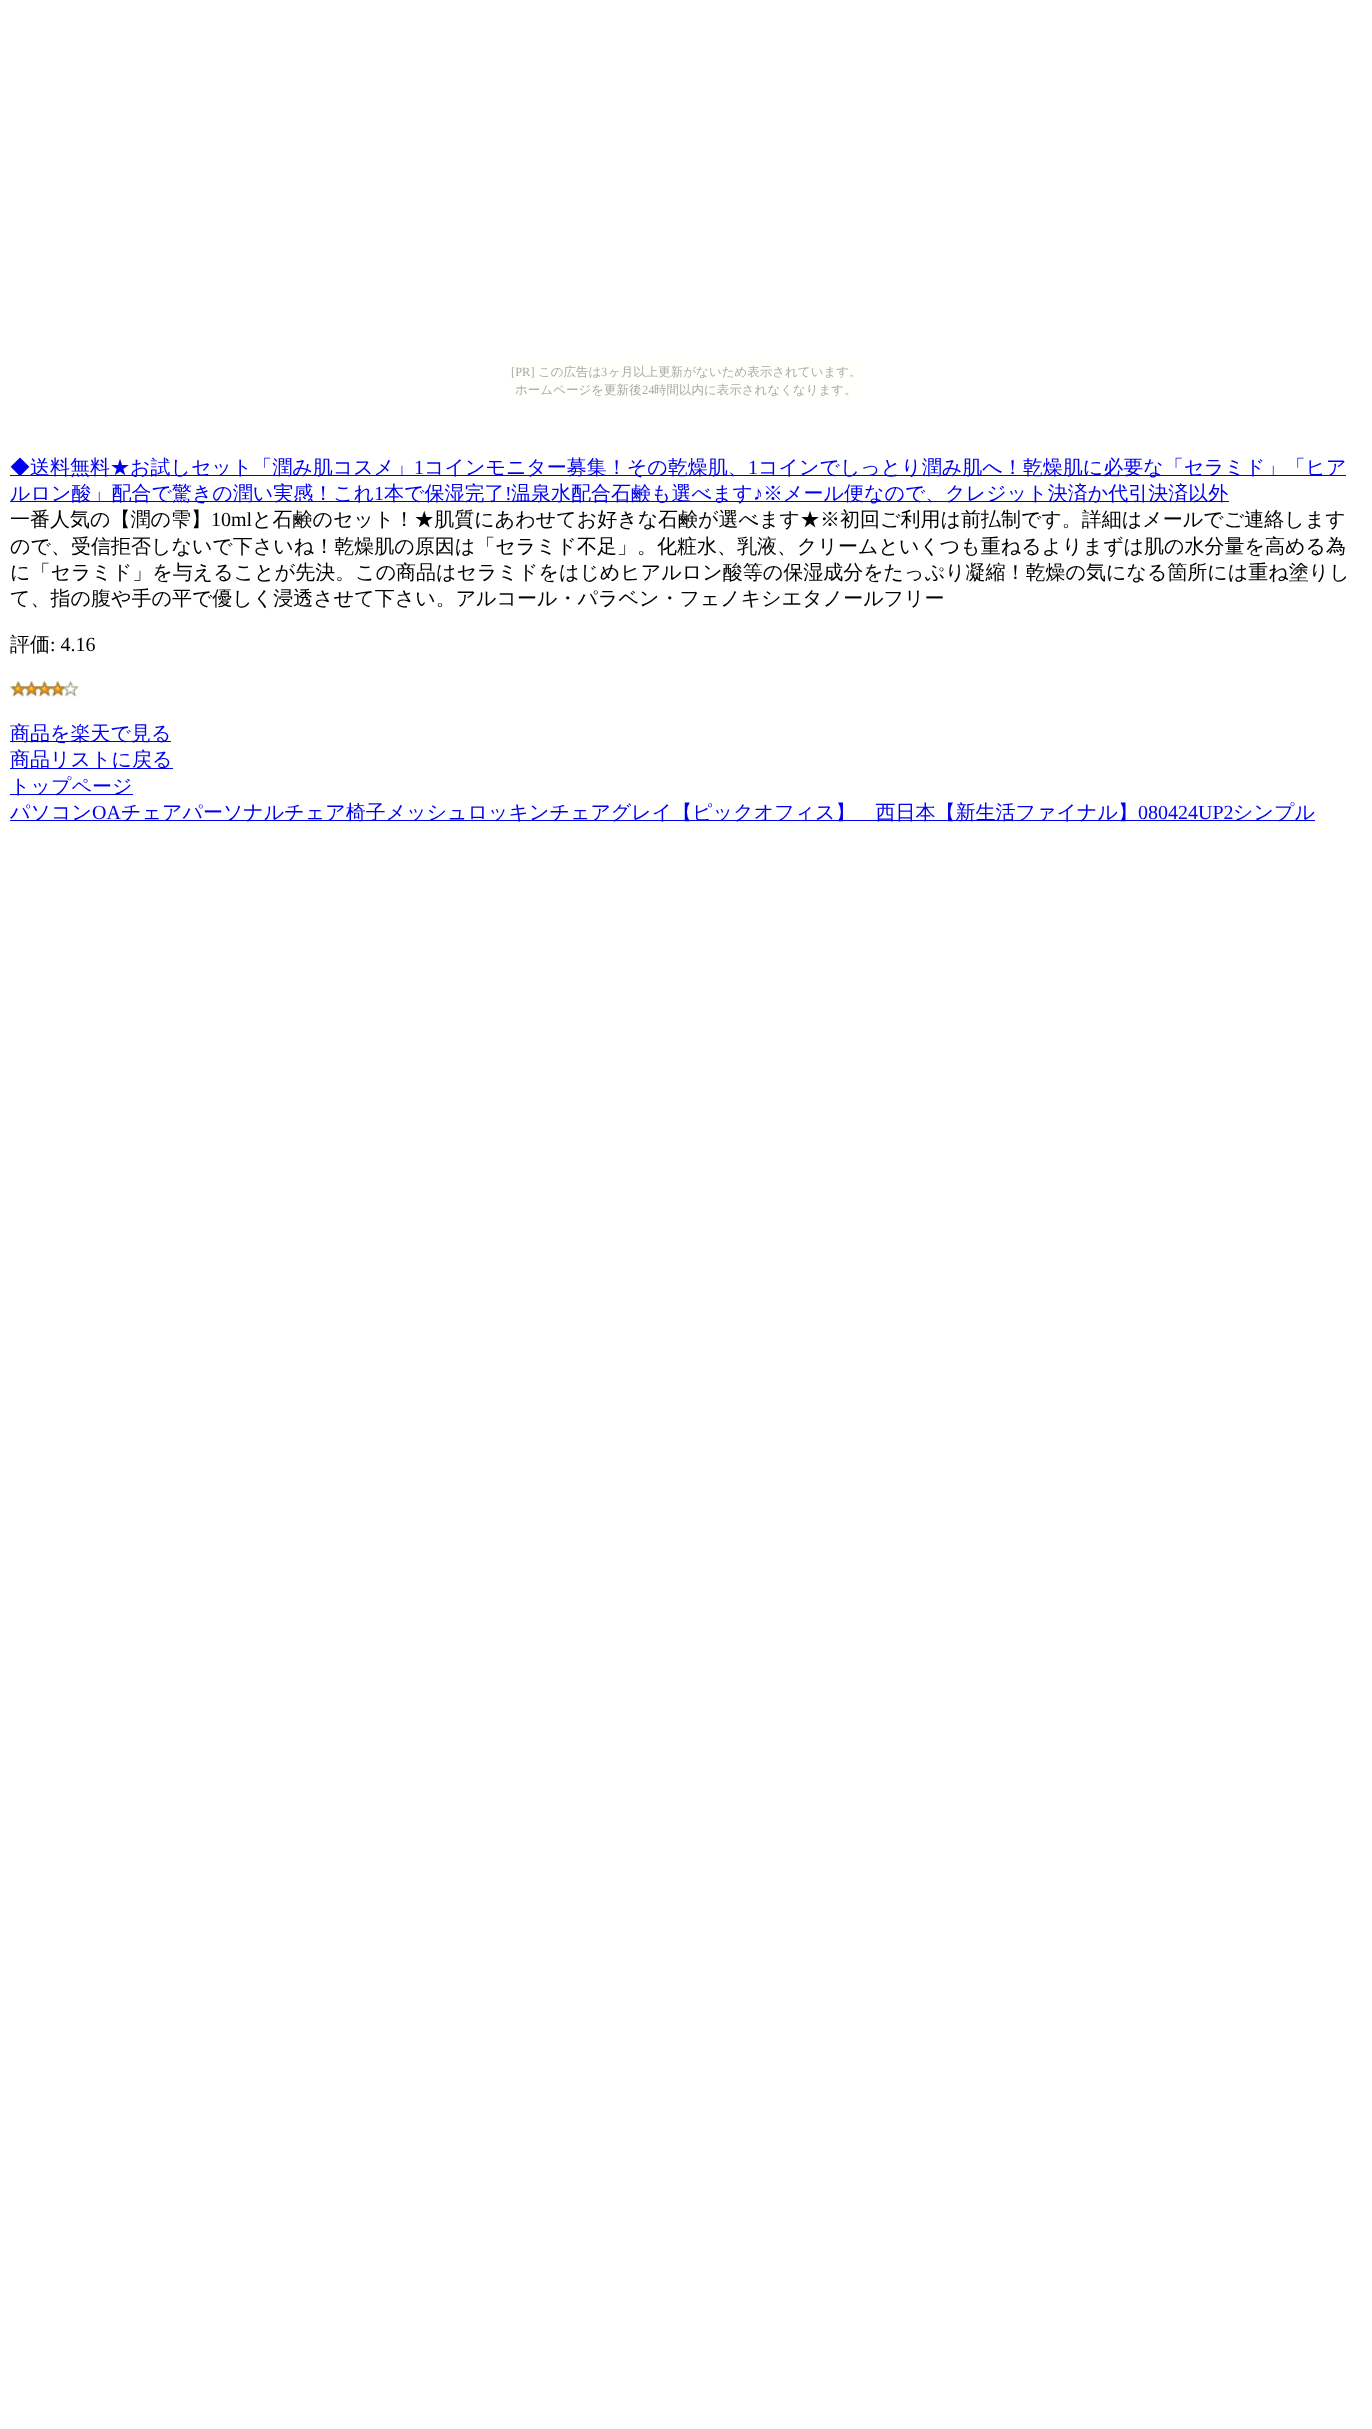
(async () => {
    const canvas = document.querySelector("canvas");
    canvas.width = 1372;
    canvas.height = 2429;
    const context = canvas.getContext("2d");
    context.miterLimit = 4;
    context.fontKerning = "normal";
    function write(s, x, y, font, color) {
        context.font = font;
        context.fillStyle = color;
        context.fillText(s, x, y);
    }
    function block(x, y, w, h, color) {
        context.fillStyle = color;
        context.fillRect(x, y, w, h);
    }
    async function photo(src, x, y, w, h) {
        const img = new Image();
        img.src = src;
        await img.decode();
        context.drawImage(img, x, y, w, h);
    }

    block(0, 0, 1372, 2429, "rgb(255, 255, 255)");
    block(508, 360, 357, 43, "rgb(255, 255, 252)");
    write("[PR]", 511, 376, "12.5px Liberation Serif", "rgb(170, 170, 170)");
    write("この広告は", 538, 376, "500 12.5px WenQuanYi Zen Hei", "rgb(170, 170, 170)");
    write("3", 601, 376, "12.5px Liberation Serif", "rgb(170, 170, 170)");
    write("ヶ月以上更新がないため表示されています。", 608, 376, "500 12.5px WenQuanYi Zen Hei", "rgb(170, 170, 170)");
    write("ホームページを更新後", 515, 394, "500 12.5px WenQuanYi Zen Hei", "rgb(170, 170, 170)");
    write("24", 642, 394, "12.5px Liberation Serif", "rgb(170, 170, 170)");
    write("時間以内に表示されなくなります。", 654, 394, "500 12.5px WenQuanYi Zen Hei", "rgb(170, 170, 170)");
    block(10, 475, 1336, 1, "rgb(0, 0, 238)");
    write("◆送料無料★お試しセット「潤み肌コスメ」", 10, 474, "500 20px WenQuanYi Zen Hei", "rgb(0, 0, 238)");
    write("1", 414, 474, "20px Liberation Serif", "rgb(0, 0, 238)");
    write("コインモニター募集！その乾燥肌、", 424, 474, "500 20px WenQuanYi Zen Hei", "rgb(0, 0, 238)");
    write("1", 748, 474, "20px Liberation Serif", "rgb(0, 0, 238)");
    write("コインでしっとり潤み肌へ！乾燥肌に必要な「セラミド」「ヒア", 758, 474, "500 20px WenQuanYi Zen Hei", "rgb(0, 0, 238)");
    block(10, 501, 1219, 1, "rgb(0, 0, 238)");
    write("ルロン酸」配合で驚きの潤い実感！これ", 10, 500, "500 20px WenQuanYi Zen Hei", "rgb(0, 0, 238)");
    write("1", 374, 500, "20px Liberation Serif", "rgb(0, 0, 238)");
    write("本で保湿完了", 384, 500, "500 20px WenQuanYi Zen Hei", "rgb(0, 0, 238)");
    write("!", 505, 500, "20px Liberation Serif", "rgb(0, 0, 238)");
    write("温泉水配合石鹸も選べます", 511, 500, "500 20px WenQuanYi Zen Hei", "rgb(0, 0, 238)");
    write("♪", 753, 500, "20px Liberation Serif", "rgb(0, 0, 238)");
    write("※メール便なので、クレジット決済か代引決済以外", 763, 500, "500 20px WenQuanYi Zen Hei", "rgb(0, 0, 238)");
    write("一番人気の【潤の雫】", 10, 526, "500 20px WenQuanYi Zen Hei", "rgb(0, 0, 0)");
    write("10ml", 211, 526, "20px Liberation Serif", "rgb(0, 0, 0)");
    write("と石鹸のセット！★肌質にあわせてお好きな石鹸が選べます★※初回ご利用は前払制です。詳細はメールでご連絡します", 252, 526, "500 20px WenQuanYi Zen Hei", "rgb(0, 0, 0)");
    write("ので、受信拒否しないで下さいね！乾燥肌の原因は「セラミド不足」。化粧水、乳液、クリームといくつも重ねるよりまずは肌の水分量を高める為", 10, 553, "500 20px WenQuanYi Zen Hei", "rgb(0, 0, 0)");
    write("に「セラミド」を与えることが先決。この商品はセラミドをはじめヒアルロン酸等の保湿成分をたっぷり凝縮！乾燥の気になる箇所には重ね塗りし", 10, 579, "500 20px WenQuanYi Zen Hei", "rgb(0, 0, 0)");
    write("て、指の腹や手の平で優しく浸透させて下さい。アルコール・パラベン・フェノキシエタノールフリー", 10, 605, "500 20px WenQuanYi Zen Hei", "rgb(0, 0, 0)");
    write("評価", 10, 651, "500 20px WenQuanYi Zen Hei", "rgb(0, 0, 0)");
    write(": 4.16", 50, 651, "20px Liberation Serif", "rgb(0, 0, 0)");
    await photo("media/1.png", 10, 681, 69, 16);
    block(10, 741, 161, 1, "rgb(0, 0, 238)");
    write("商品を楽天で見る", 10, 740, "500 20px WenQuanYi Zen Hei", "rgb(0, 0, 238)");
    block(10, 768, 163, 1, "rgb(0, 0, 238)");
    write("商品リストに戻る", 10, 766, "500 20px WenQuanYi Zen Hei", "rgb(0, 0, 238)");
    block(10, 794, 123, 1, "rgb(0, 0, 238)");
    write("トップページ", 10, 793, "500 20px WenQuanYi Zen Hei", "rgb(0, 0, 238)");
    block(10, 820, 1305, 1, "rgb(0, 0, 238)");
    write("パソコン", 10, 819, "500 20px WenQuanYi Zen Hei", "rgb(0, 0, 238)");
    write("OA", 92, 819, "20px Liberation Serif", "rgb(0, 0, 238)");
    write("チェアパーソナルチェア椅子メッシュロッキンチェアグレイ【ピックオフィス】　西日本【新生活ファイナル】", 121, 819, "500 20px WenQuanYi Zen Hei", "rgb(0, 0, 238)");
    write("080424UP2", 1138, 819, "20px Liberation Serif", "rgb(0, 0, 238)");
    write("シンプル", 1233, 819, "500 20px WenQuanYi Zen Hei", "rgb(0, 0, 238)");
})();
